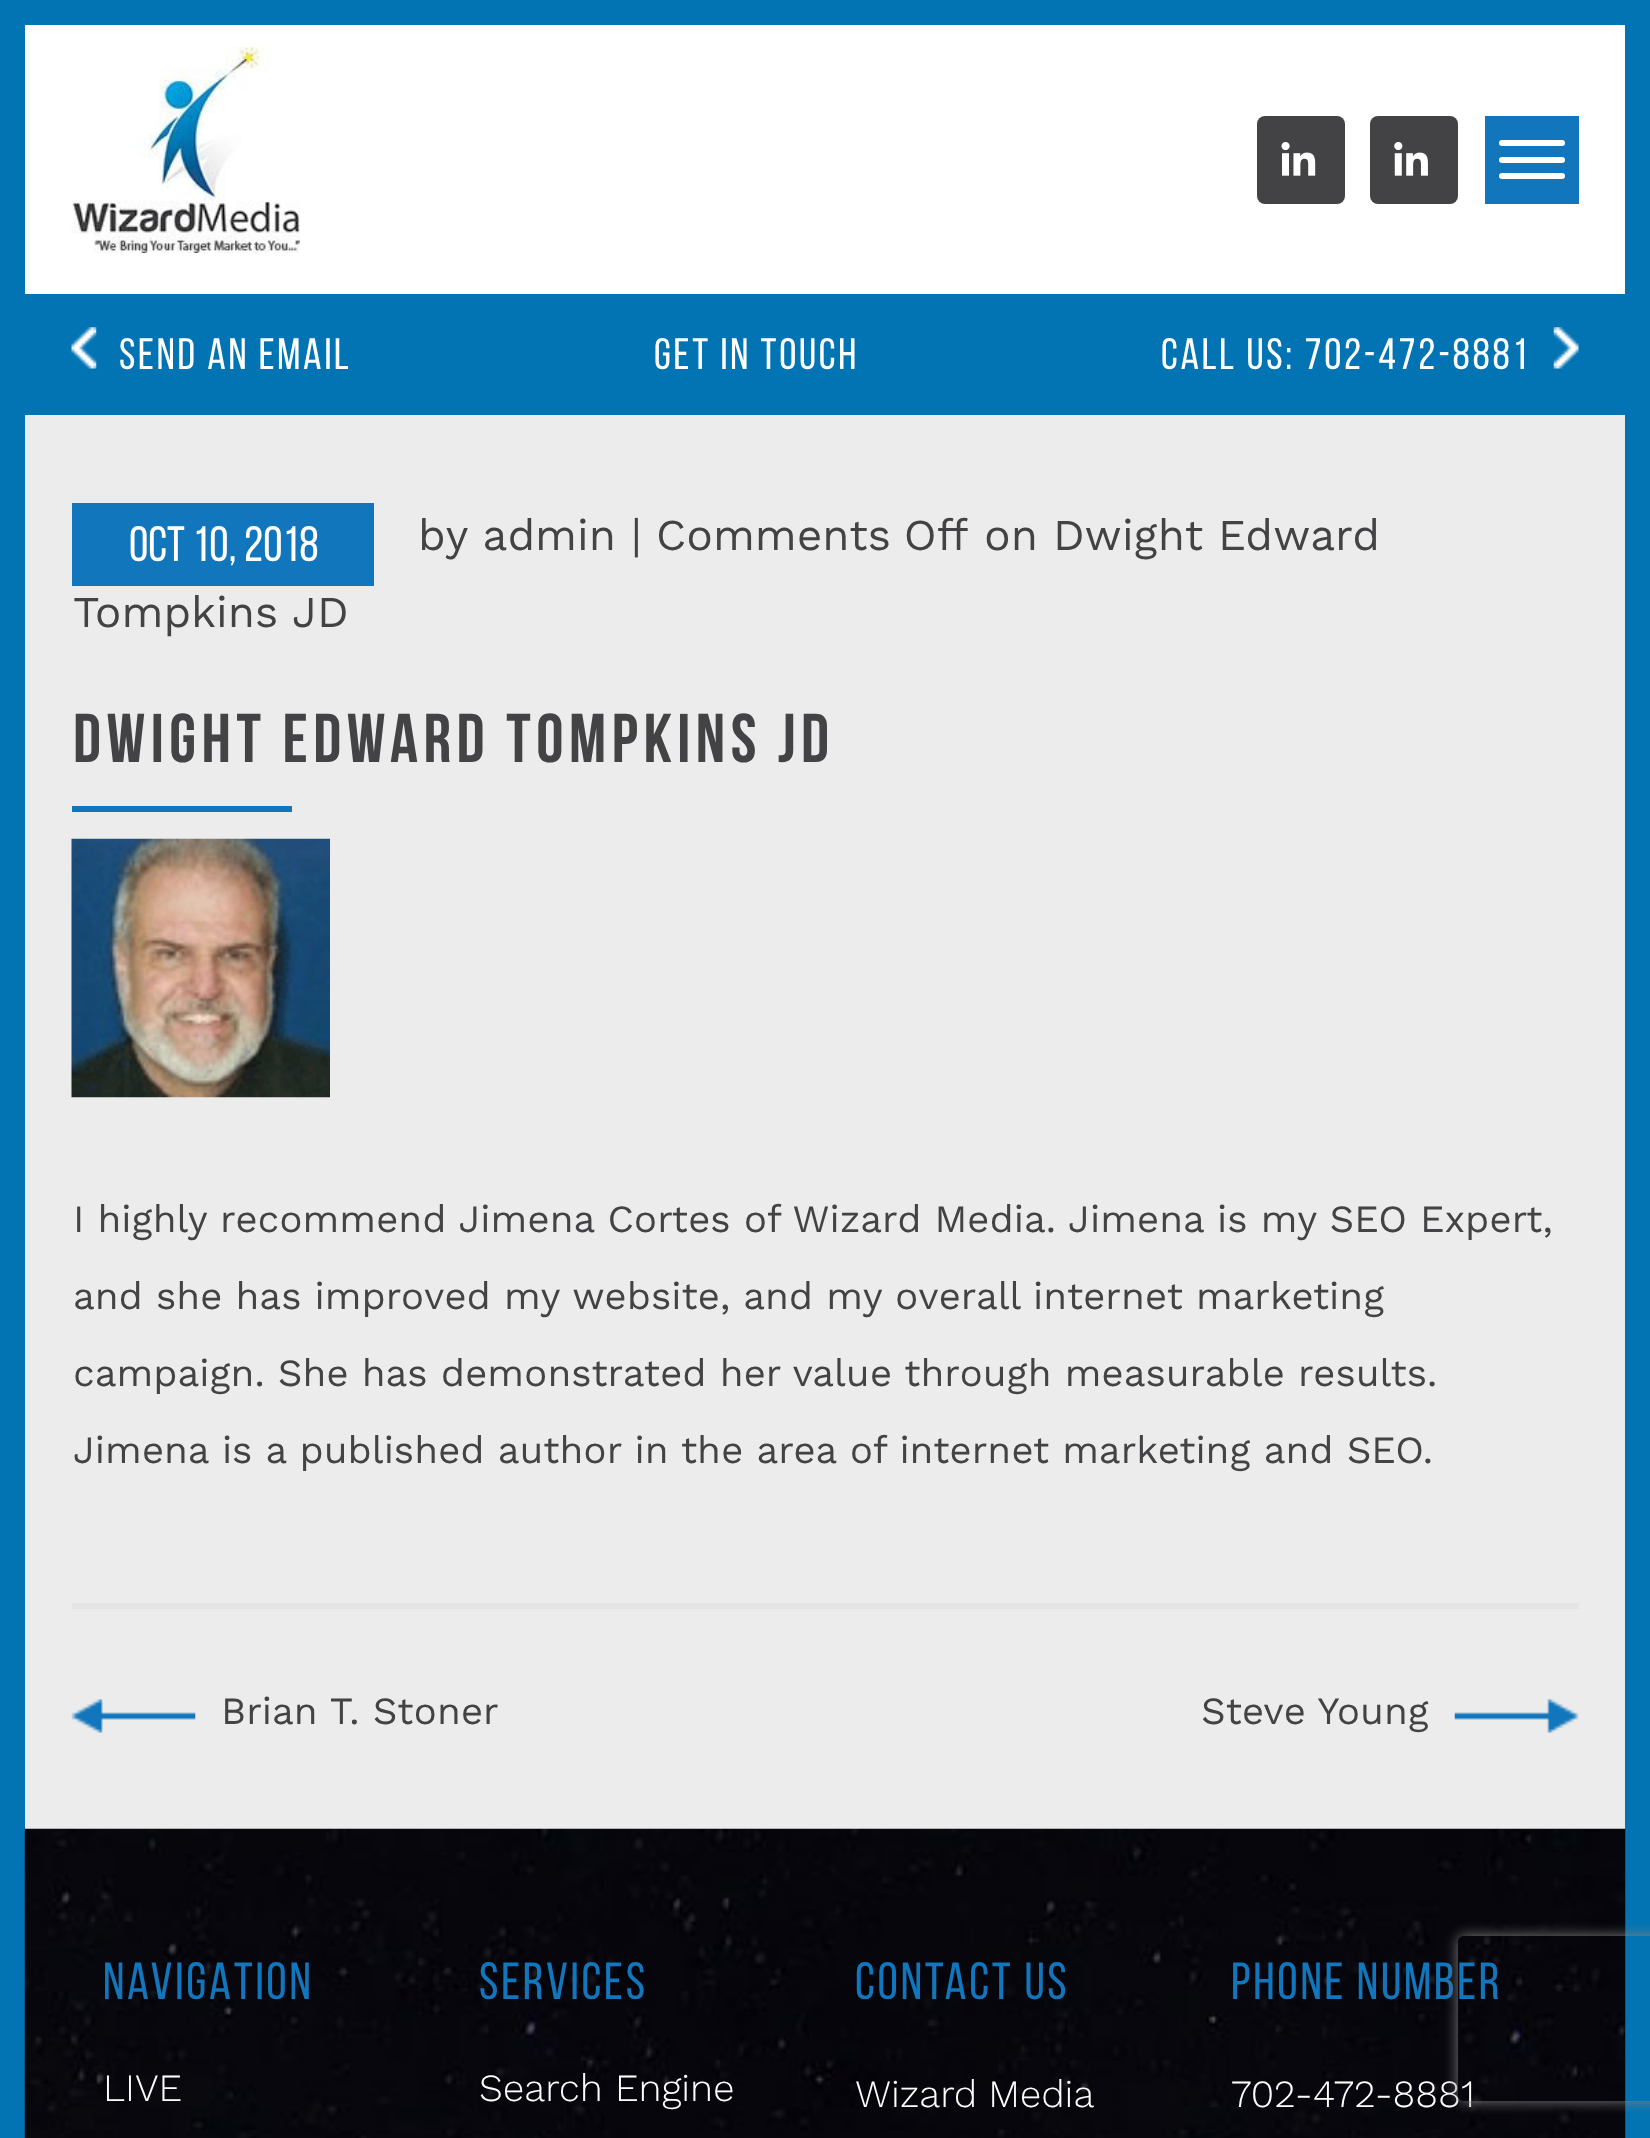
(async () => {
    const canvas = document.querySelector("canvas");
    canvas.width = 1650;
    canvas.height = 2138;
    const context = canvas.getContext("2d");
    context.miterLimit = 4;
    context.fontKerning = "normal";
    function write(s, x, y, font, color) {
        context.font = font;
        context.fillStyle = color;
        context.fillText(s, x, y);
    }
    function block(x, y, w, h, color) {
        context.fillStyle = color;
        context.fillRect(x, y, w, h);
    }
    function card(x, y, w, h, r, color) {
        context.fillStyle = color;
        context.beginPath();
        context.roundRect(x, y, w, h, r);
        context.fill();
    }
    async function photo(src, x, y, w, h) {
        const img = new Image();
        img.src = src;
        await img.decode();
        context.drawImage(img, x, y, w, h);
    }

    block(0, 0, 1650, 2138, "rgb(2, 116, 179)");
    block(25, 25, 1600, 269, "rgb(255, 255, 255)");
    await photo("media/1.png", 71, 46, 229, 207);
    card(1257, 116, 88, 88, 8, "rgb(67, 67, 69)");
    await photo("media/2.png", 1281, 142, 35, 34);
    card(1370, 116, 88, 88, 8, "rgb(67, 67, 69)");
    await photo("media/3.png", 1394, 142, 34, 34);
    block(1485, 116, 94, 88, "rgb(17, 118, 188)");
    card(1499, 140, 66, 6, 3, "rgb(255, 255, 255)");
    card(1499, 157, 66, 6, 3, "rgb(255, 255, 255)");
    card(1499, 173, 66, 6, 3, "rgb(255, 255, 255)");
    await photo("media/4.png", 71, 327, 26, 42);
    context.letterSpacing = "2.75px";
    write("SEND AN EMAIL", 119, 369, "44px Bebas Neue", "rgb(255, 255, 255)");
    write("GET IN TOUCH", 654, 369, "44px Bebas Neue", "rgb(255, 255, 255)");
    write("CALL US: 702-472-8881", 1161, 369, "44px Bebas Neue", "rgb(255, 255, 255)");
    await photo("media/5.png", 1553, 327, 26, 42);
    block(25, 415, 1600, 1414, "rgb(236, 236, 236)");
    block(72, 503, 302, 83, "rgb(18, 118, 188)");
    context.letterSpacing = "0px";
    write("Oct 10, 2018", 129, 561, "49.5px Bebas Neue", "rgb(255, 255, 255)");
    write("by admin |", 418, 550, "44px Work Sans", "rgb(67, 67, 69)");
    context.wordSpacing = "-2px";
    write("Comments Off", 656, 550, "44px Work Sans", "rgb(67, 67, 69)");
    context.wordSpacing = "0px";
    write("on Dwight Edward", 984, 550, "44px Work Sans", "rgb(67, 67, 69)");
    write("Tompkins JD", 73, 627, "44px Work Sans", "rgb(67, 67, 69)");
    context.letterSpacing = "5.5px";
    write("DWIGHT EDWARD TOMPKINS JD", 73, 762, "bold 68.75px Bebas Neue", "rgb(67, 67, 69)");
    block(72, 806, 220, 6, "rgb(18, 118, 188)");
    await photo("media/6.png", 71, 838, 259, 260);
    context.letterSpacing = "0px";
    write("I highly recommend Jimena Cortes of Wizard Media. Jimena is my SEO Expert,", 73, 1232, "38.5px Work Sans", "rgb(67, 67, 69)");
    write("and she has improved my website, and my overall internet marketing", 73, 1309, "38.5px Work Sans", "rgb(67, 67, 69)");
    write("campaign. She has demonstrated her value through measurable results.", 73, 1386, "38.5px Work Sans", "rgb(67, 67, 69)");
    write("Jimena is a published author in the area of internet marketing and SEO.", 73, 1463, "38.5px Work Sans", "rgb(67, 67, 69)");
    block(72, 1603, 1507, 6, "rgb(229, 229, 229)");
    await photo("media/7.png", 71, 1699, 125, 34);
    write("Brian T. Stoner", 221, 1724, "38.5px Work Sans", "rgb(67, 67, 69)");
    write("Steve Young", 1201, 1724, "38.5px Work Sans", "rgb(67, 67, 69)");
    await photo("media/8.png", 1454, 1699, 125, 34);
    await photo("media/9.png", 24, 1828, 1602, 310);
    context.letterSpacing = "2.75px";
    write("NAVIGATION", 103, 1999, "52.25px Bebas Neue", "rgb(18, 118, 188)");
    context.letterSpacing = "0px";
    write("LIVE", 103, 2101, "300 38.5px Work Sans", "rgb(255, 255, 255)");
    context.letterSpacing = "2.75px";
    write("SERVICES", 479, 1999, "52.25px Bebas Neue", "rgb(18, 118, 188)");
    context.letterSpacing = "0px";
    write("Search Engine", 479, 2101, "300 38.5px Work Sans", "rgb(255, 255, 255)");
    context.letterSpacing = "2.75px";
    write("CONTACT US", 855, 1999, "52.25px Bebas Neue", "rgb(18, 118, 188)");
    context.letterSpacing = "0px";
    context.wordSpacing = "-1px";
    write("Wizard Media", 855, 2107, "300 38.5px Work Sans", "rgb(255, 255, 255)");
    context.letterSpacing = "2.75px";
    context.wordSpacing = "0px";
    write("PHONE NUMBER", 1231, 1999, "52.25px Bebas Neue", "rgb(18, 118, 188)");
    context.letterSpacing = "0px";
    write("702-472-8881", 1231, 2107, "300 38.5px Work Sans", "rgb(255, 255, 255)");
    context.save();
    context.beginPath();
    context.moveTo(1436, 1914);
    context.lineTo(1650, 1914);
    context.lineTo(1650, 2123);
    context.lineTo(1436, 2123);
    context.closePath();
    context.moveTo(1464, 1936);
    context.lineTo(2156, 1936);
    context.bezierCurveTo(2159.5, 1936, 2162, 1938.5, 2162, 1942);
    context.lineTo(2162, 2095);
    context.bezierCurveTo(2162, 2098.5, 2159.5, 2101, 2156, 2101);
    context.lineTo(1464, 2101);
    context.bezierCurveTo(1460.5, 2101, 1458, 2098.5, 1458, 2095);
    context.lineTo(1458, 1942);
    context.bezierCurveTo(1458, 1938.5, 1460.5, 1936, 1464, 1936);
    context.closePath();
    context.clip("evenodd");
    context.fillStyle = "rgb(128, 128, 128)";
    context.filter = "blur(7px)";
    context.beginPath();
    context.roundRect(1458, 1936, 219, 165, 6);
    context.fill();
    context.filter = "none";
    context.restore();
})();
